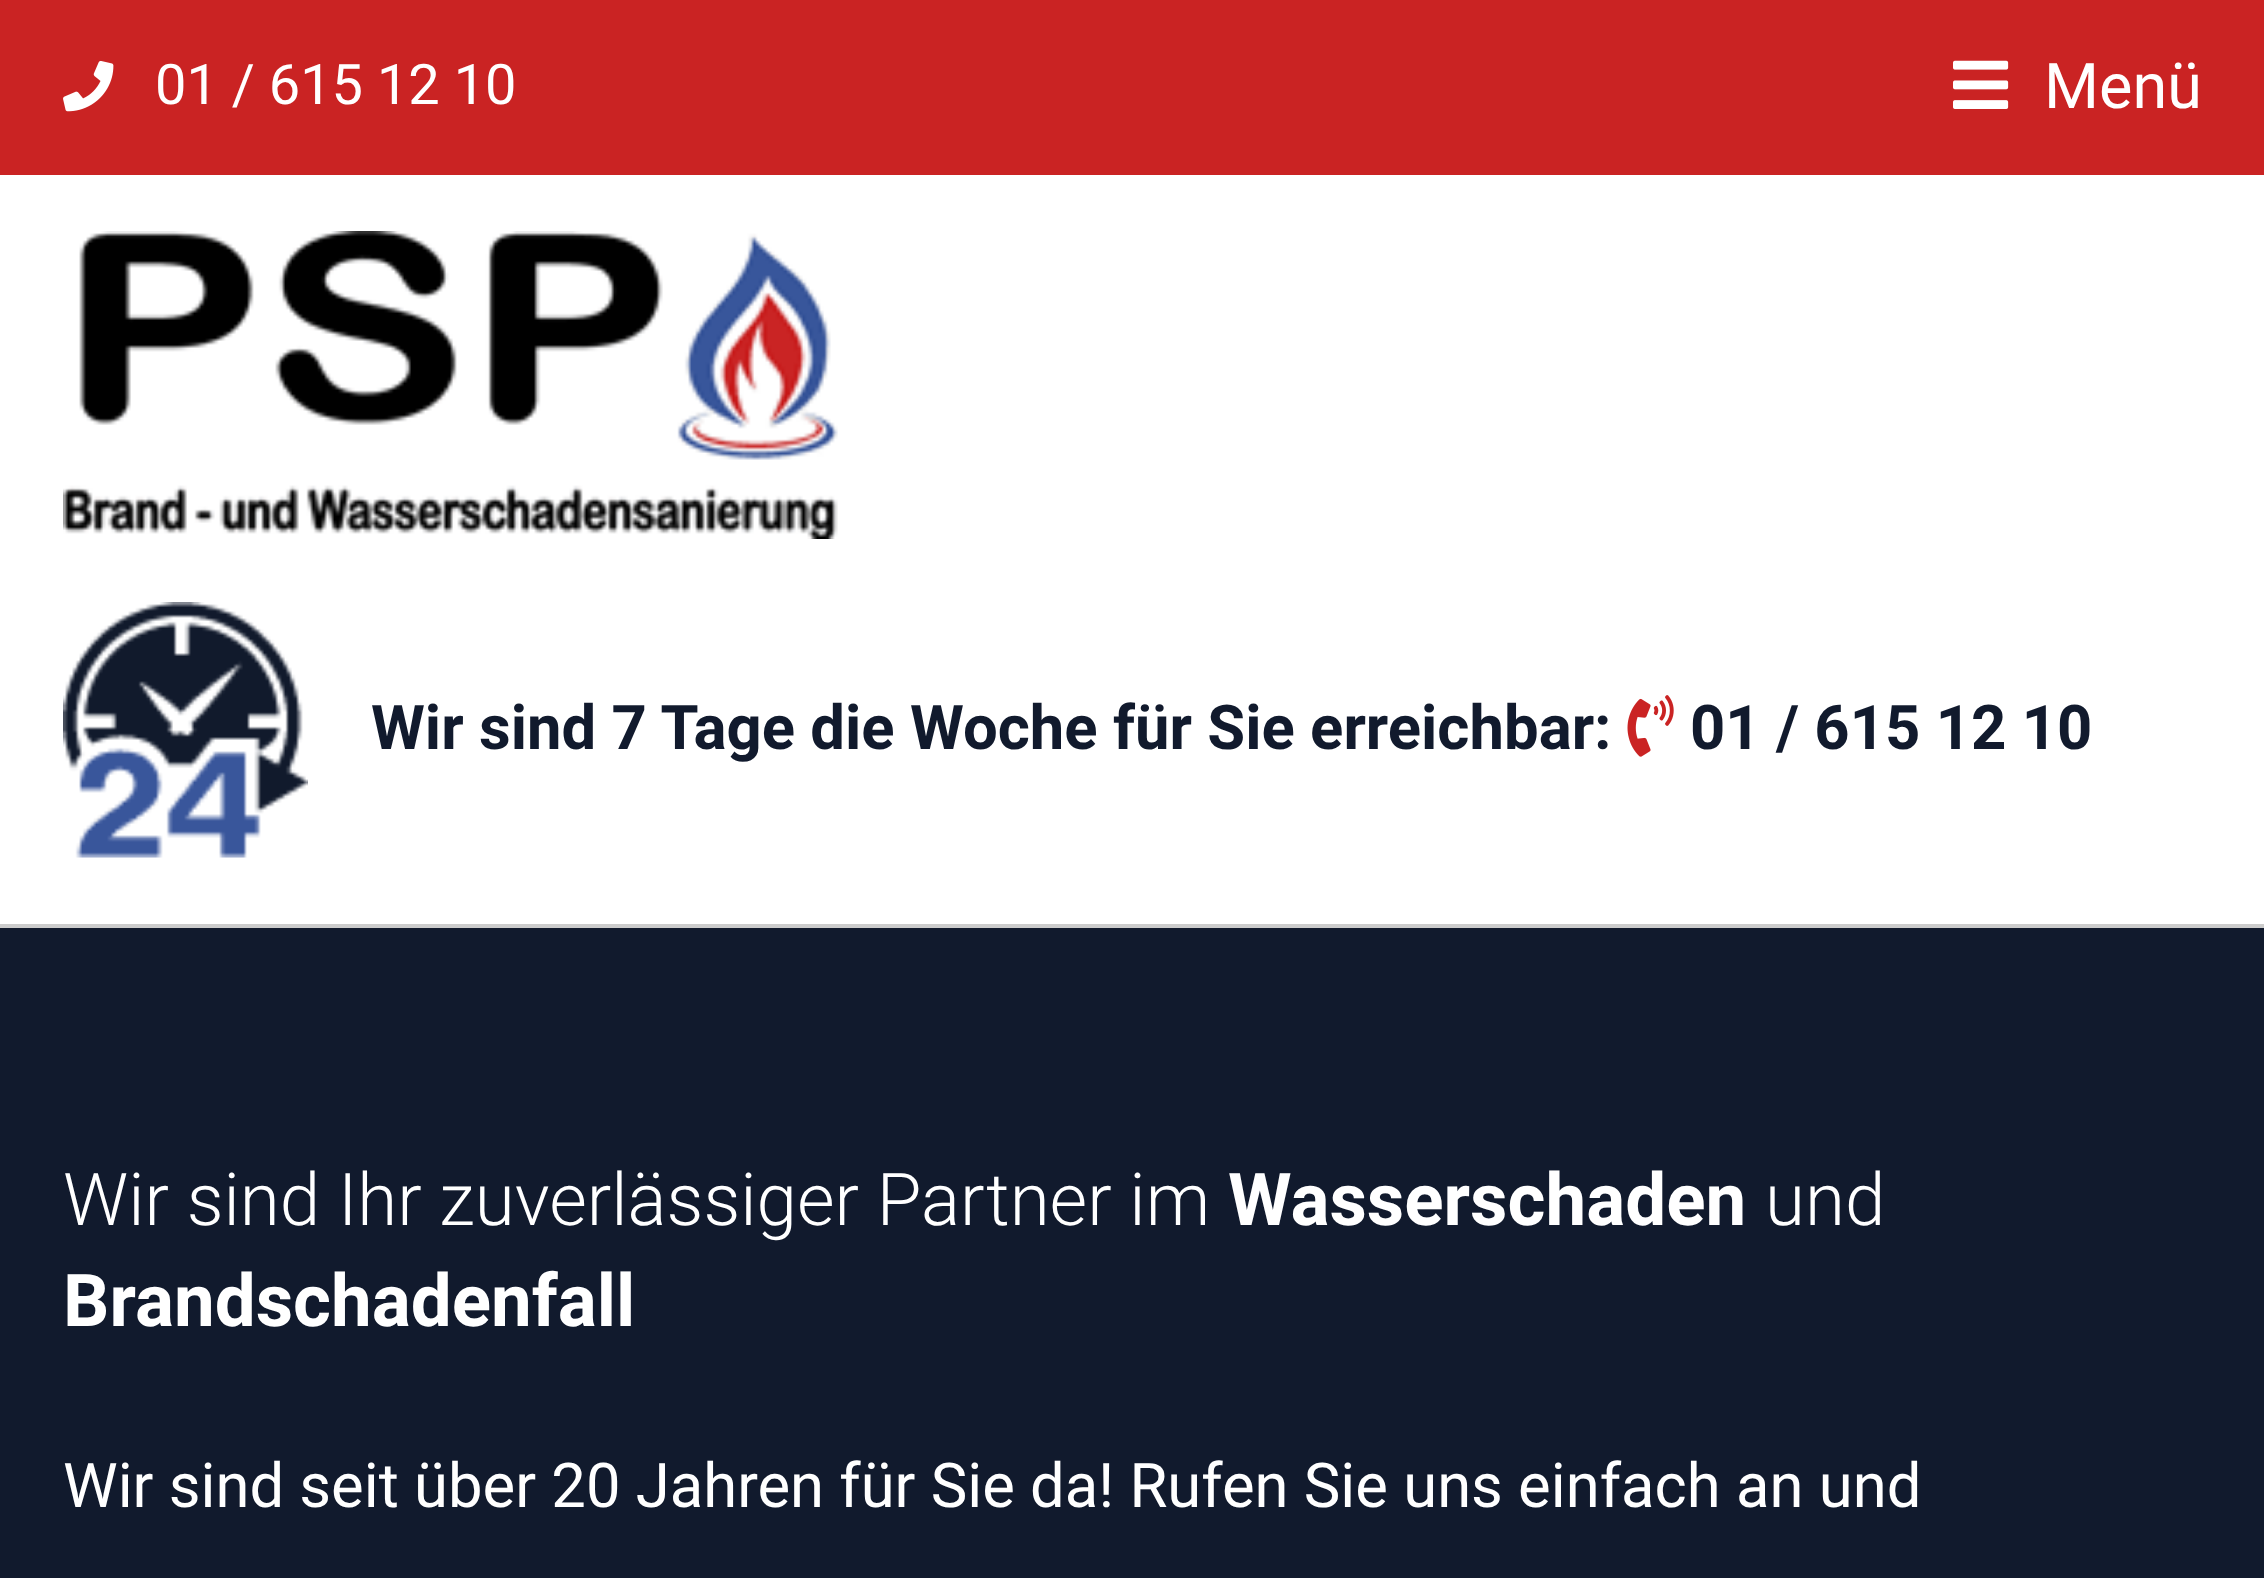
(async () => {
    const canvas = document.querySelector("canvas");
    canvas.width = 2264;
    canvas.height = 1578;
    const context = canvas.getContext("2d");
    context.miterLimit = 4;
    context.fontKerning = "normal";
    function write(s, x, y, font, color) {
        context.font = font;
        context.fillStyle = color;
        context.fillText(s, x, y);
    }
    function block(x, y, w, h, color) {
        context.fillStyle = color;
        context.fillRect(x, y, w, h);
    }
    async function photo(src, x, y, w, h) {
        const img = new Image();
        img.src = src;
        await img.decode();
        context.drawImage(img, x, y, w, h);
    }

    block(0, 0, 2264, 1578, "rgb(255, 255, 255)");
    block(0, 0, 2264, 175, "rgb(202, 35, 35)");
    await photo("media/1.png", 63, 60, 51, 52);
    write("01 / 615 12 10", 155, 104, "56px Roboto", "rgb(255, 255, 255)");
    await photo("media/2.png", 1953, 60, 56, 49);
    write("Menü", 2044, 108, "63px Roboto", "rgb(255, 255, 255)");
    block(0, 924, 2264, 4, "rgb(204, 204, 204)");
    await photo("media/3.png", 63, 231, 775, 308);
    await photo("media/4.png", 63, 602, 245, 256);
    write("Wir sind 7 Tage die Woche für Sie erreichbar:", 371, 749, "bold 61.6px Roboto", "rgb(17, 26, 45)");
    await photo("media/5.png", 1627, 695, 47, 62);
    write("01 / 615 12 10", 1690, 749, "bold 61.6px Roboto", "rgb(17, 26, 45)");
    block(0, 928, 2264, 650, "rgb(17, 26, 45)");
    write("Wir sind Ihr zuverlässiger Partner im", 63, 1225, "300 72.75px Roboto", "rgb(255, 255, 255)");
    write("Wasserschaden", 1228, 1225, "bold 72.75px Roboto", "rgb(255, 255, 255)");
    write("und", 1765, 1225, "300 72.75px Roboto", "rgb(255, 255, 255)");
    write("Brandschadenfall", 63, 1326, "bold 72.75px Roboto", "rgb(255, 255, 255)");
    write("Wir sind seit über 20 Jahren für Sie da! Rufen Sie uns einfach an und", 63, 1507, "61.6px Roboto", "rgb(255, 255, 255)");
})();
